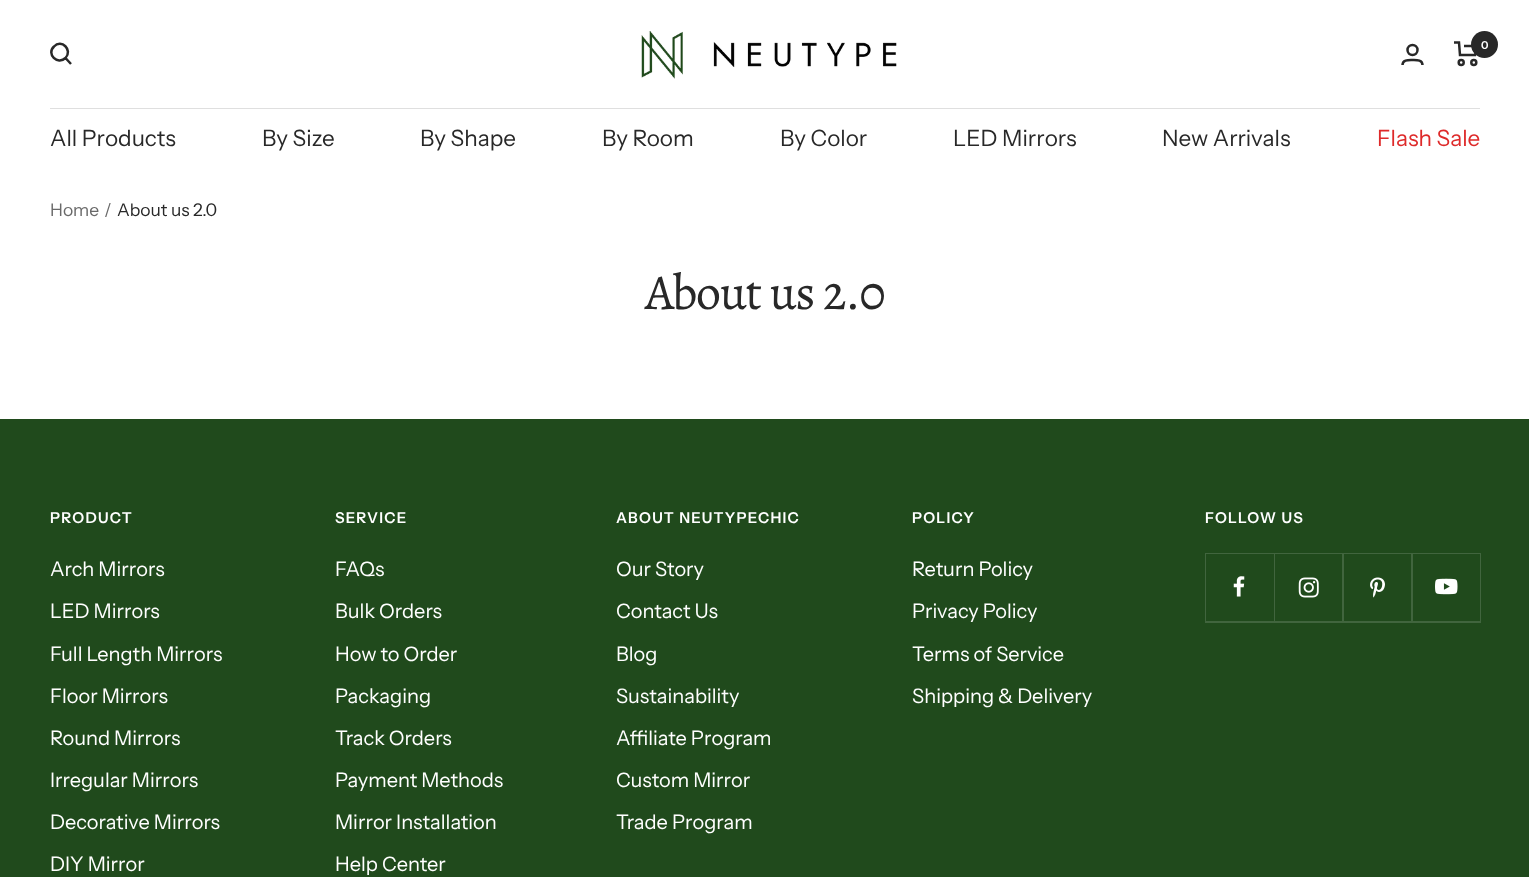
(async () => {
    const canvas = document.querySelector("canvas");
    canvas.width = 1529;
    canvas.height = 877;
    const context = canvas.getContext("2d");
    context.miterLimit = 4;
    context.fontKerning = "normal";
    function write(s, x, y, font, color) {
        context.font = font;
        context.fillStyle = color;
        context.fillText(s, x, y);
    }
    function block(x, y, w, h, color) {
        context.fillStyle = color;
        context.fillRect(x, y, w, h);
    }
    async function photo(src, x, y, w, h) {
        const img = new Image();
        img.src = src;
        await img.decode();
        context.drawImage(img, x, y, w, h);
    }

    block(0, 0, 1529, 877, "rgb(255, 255, 255)");
    context.beginPath();
    context.moveTo(65.5, 58);
    context.bezierCurveTo(73, 50, 61.5, 38.5, 54, 46.5);
    context.bezierCurveTo(46, 54, 57.5, 65.5, 65.5, 58);
    context.closePath();
    context.moveTo(65.5, 58);
    context.lineTo(71, 64);
    context.strokeStyle = "rgb(40, 40, 40)";
    context.lineWidth = 2.5;
    context.stroke();
    await photo("media/1.png", 641, 31, 256, 48);
    context.beginPath();
    context.arc(1412.5, 50, 5, 0, Math.PI * 2);
    context.stroke();
    context.beginPath();
    context.moveTo(1402.5, 65);
    context.bezierCurveTo(1402.5, 59.5, 1408.5, 60, 1412.5, 60);
    context.bezierCurveTo(1416.5, 60, 1422.5, 59.5, 1422.5, 65);
    context.stroke();
    context.beginPath();
    context.moveTo(1454, 42.5);
    context.lineTo(1459, 42.5);
    context.lineTo(1460, 55);
    context.lineTo(1475, 55);
    context.lineTo(1477.5, 46);
    context.lineTo(1464, 46);
    context.stroke();
    context.beginPath();
    context.arc(1461.2, 62.5, 2.5, 0, Math.PI * 2);
    context.stroke();
    context.beginPath();
    context.arc(1473.8, 62.5, 2.5, 0, Math.PI * 2);
    context.stroke();
    context.fillStyle = "rgb(40, 40, 40)";
    context.beginPath();
    context.arc(1484.5, 44.5, 13.5, 0, Math.PI * 2);
    context.fill();
    write("0", 1481, 49, "600 11px Instrument Sans", "rgb(255, 255, 255)");
    block(50, 108, 1430, 1, "rgb(223, 223, 223)");
    write("All Products", 50, 146, "22.5px Instrument Sans", "rgb(40, 40, 40)");
    write("By Size", 262, 146, "22.5px Instrument Sans", "rgb(40, 40, 40)");
    write("By Shape", 420, 146, "22.5px Instrument Sans", "rgb(40, 40, 40)");
    write("By Room", 602, 146, "22.5px Instrument Sans", "rgb(40, 40, 40)");
    write("By Color", 780, 146, "22.5px Instrument Sans", "rgb(40, 40, 40)");
    write("LED Mirrors", 953, 146, "22.5px Instrument Sans", "rgb(40, 40, 40)");
    write("New Arrivals", 1162, 146, "22.5px Instrument Sans", "rgb(40, 40, 40)");
    write("Flash Sale", 1377, 146, "22.5px Instrument Sans", "rgb(222, 42, 42)");
    write("Home", 50, 216, "17.5px Instrument Sans", "rgb(105, 105, 105)");
    write("/", 104, 216, "17.5px Instrument Sans", "rgb(105, 105, 105)");
    write("About us 2.0", 117, 216, "17.5px Instrument Sans", "rgb(40, 40, 40)");
    context.letterSpacing = "-1.25px";
    write("About us 2.0", 645, 309, "50px Alegreya", "rgb(40, 40, 40)");
    block(0, 419, 1529, 458, "rgb(32, 74, 28)");
    context.letterSpacing = "1.25px";
    write("PRODUCT", 50, 523, "600 15px Instrument Sans", "rgb(255, 255, 255)");
    context.letterSpacing = "0px";
    write("Arch Mirrors", 50, 576, "20px Instrument Sans", "rgb(255, 255, 255)");
    write("LED Mirrors", 50, 618, "20px Instrument Sans", "rgb(255, 255, 255)");
    write("Full Length Mirrors", 50, 661, "20px Instrument Sans", "rgb(255, 255, 255)");
    write("Floor Mirrors", 50, 703, "20px Instrument Sans", "rgb(255, 255, 255)");
    write("Round Mirrors", 50, 745, "20px Instrument Sans", "rgb(255, 255, 255)");
    write("Irregular Mirrors", 50, 787, "20px Instrument Sans", "rgb(255, 255, 255)");
    write("Decorative Mirrors", 50, 829, "20px Instrument Sans", "rgb(255, 255, 255)");
    write("DIY Mirror", 50, 871, "20px Instrument Sans", "rgb(255, 255, 255)");
    context.letterSpacing = "1.25px";
    write("SERVICE", 335, 523, "600 15px Instrument Sans", "rgb(255, 255, 255)");
    context.letterSpacing = "0px";
    write("FAQs", 335, 576, "20px Instrument Sans", "rgb(255, 255, 255)");
    write("Bulk Orders", 335, 618, "20px Instrument Sans", "rgb(255, 255, 255)");
    write("How to Order", 335, 661, "20px Instrument Sans", "rgb(255, 255, 255)");
    write("Packaging", 335, 703, "20px Instrument Sans", "rgb(255, 255, 255)");
    write("Track Orders", 335, 745, "20px Instrument Sans", "rgb(255, 255, 255)");
    write("Payment Methods", 335, 787, "20px Instrument Sans", "rgb(255, 255, 255)");
    write("Mirror Installation", 335, 829, "20px Instrument Sans", "rgb(255, 255, 255)");
    write("Help Center", 335, 871, "20px Instrument Sans", "rgb(255, 255, 255)");
    context.letterSpacing = "1.25px";
    write("ABOUT NEUTYPECHIC", 616, 523, "600 15px Instrument Sans", "rgb(255, 255, 255)");
    context.letterSpacing = "0px";
    write("Our Story", 616, 576, "20px Instrument Sans", "rgb(255, 255, 255)");
    write("Contact Us", 616, 618, "20px Instrument Sans", "rgb(255, 255, 255)");
    write("Blog", 616, 661, "20px Instrument Sans", "rgb(255, 255, 255)");
    write("Sustainability", 616, 703, "20px Instrument Sans", "rgb(255, 255, 255)");
    write("Affiliate Program", 616, 745, "20px Instrument Sans", "rgb(255, 255, 255)");
    write("Custom Mirror", 616, 787, "20px Instrument Sans", "rgb(255, 255, 255)");
    write("Trade Program", 616, 829, "20px Instrument Sans", "rgb(255, 255, 255)");
    context.letterSpacing = "1.25px";
    write("POLICY", 912, 523, "600 15px Instrument Sans", "rgb(255, 255, 255)");
    context.letterSpacing = "0px";
    write("Return Policy", 912, 576, "20px Instrument Sans", "rgb(255, 255, 255)");
    write("Privacy Policy", 912, 618, "20px Instrument Sans", "rgb(255, 255, 255)");
    write("Terms of Service", 912, 661, "20px Instrument Sans", "rgb(255, 255, 255)");
    write("Shipping & Delivery", 912, 703, "20px Instrument Sans", "rgb(255, 255, 255)");
    context.letterSpacing = "1.25px";
    write("FOLLOW US", 1205, 523, "600 15px Instrument Sans", "rgb(255, 255, 255)");
    context.fillStyle = "rgb(65, 101, 62)";
    context.beginPath();
    context.moveTo(1206, 621);
    context.lineTo(1206, 623);
    context.lineTo(1275, 623);
    context.lineTo(1275, 554);
    context.lineTo(1274, 554);
    context.lineTo(1274, 621);
    context.closePath();
    context.fill();
    context.beginPath();
    context.moveTo(1205, 621);
    context.lineTo(1205, 623);
    context.lineTo(1274, 623);
    context.lineTo(1274, 554);
    context.lineTo(1274, 621);
    context.closePath();
    context.fill();
    block(1205, 553, 70, 1, "rgb(65, 101, 62)");
    block(1205, 553, 1, 68, "rgb(65, 101, 62)");
    await photo("media/2.png", 1233, 576, 12, 21);
    context.beginPath();
    context.moveTo(1275, 621);
    context.lineTo(1275, 623);
    context.lineTo(1344, 623);
    context.lineTo(1344, 554);
    context.lineTo(1342, 554);
    context.lineTo(1342, 621);
    context.closePath();
    context.fill();
    block(1274, 553, 70, 1, "rgb(65, 101, 62)");
    await photo("media/3.png", 1298, 577, 21, 21);
    context.beginPath();
    context.moveTo(1344, 621);
    context.lineTo(1344, 623);
    context.lineTo(1413, 623);
    context.lineTo(1413, 554);
    context.lineTo(1411, 554);
    context.lineTo(1411, 621);
    context.closePath();
    context.fill();
    block(1343, 553, 70, 1, "rgb(65, 101, 62)");
    await photo("media/4.png", 1370, 577, 15, 21);
    context.beginPath();
    context.moveTo(1413, 621);
    context.lineTo(1413, 623);
    context.lineTo(1481, 623);
    context.lineTo(1481, 554);
    context.lineTo(1480, 554);
    context.lineTo(1480, 621);
    context.closePath();
    context.fill();
    block(1411, 553, 70, 1, "rgb(65, 101, 62)");
    await photo("media/5.png", 1435, 578, 23, 17);
})();
